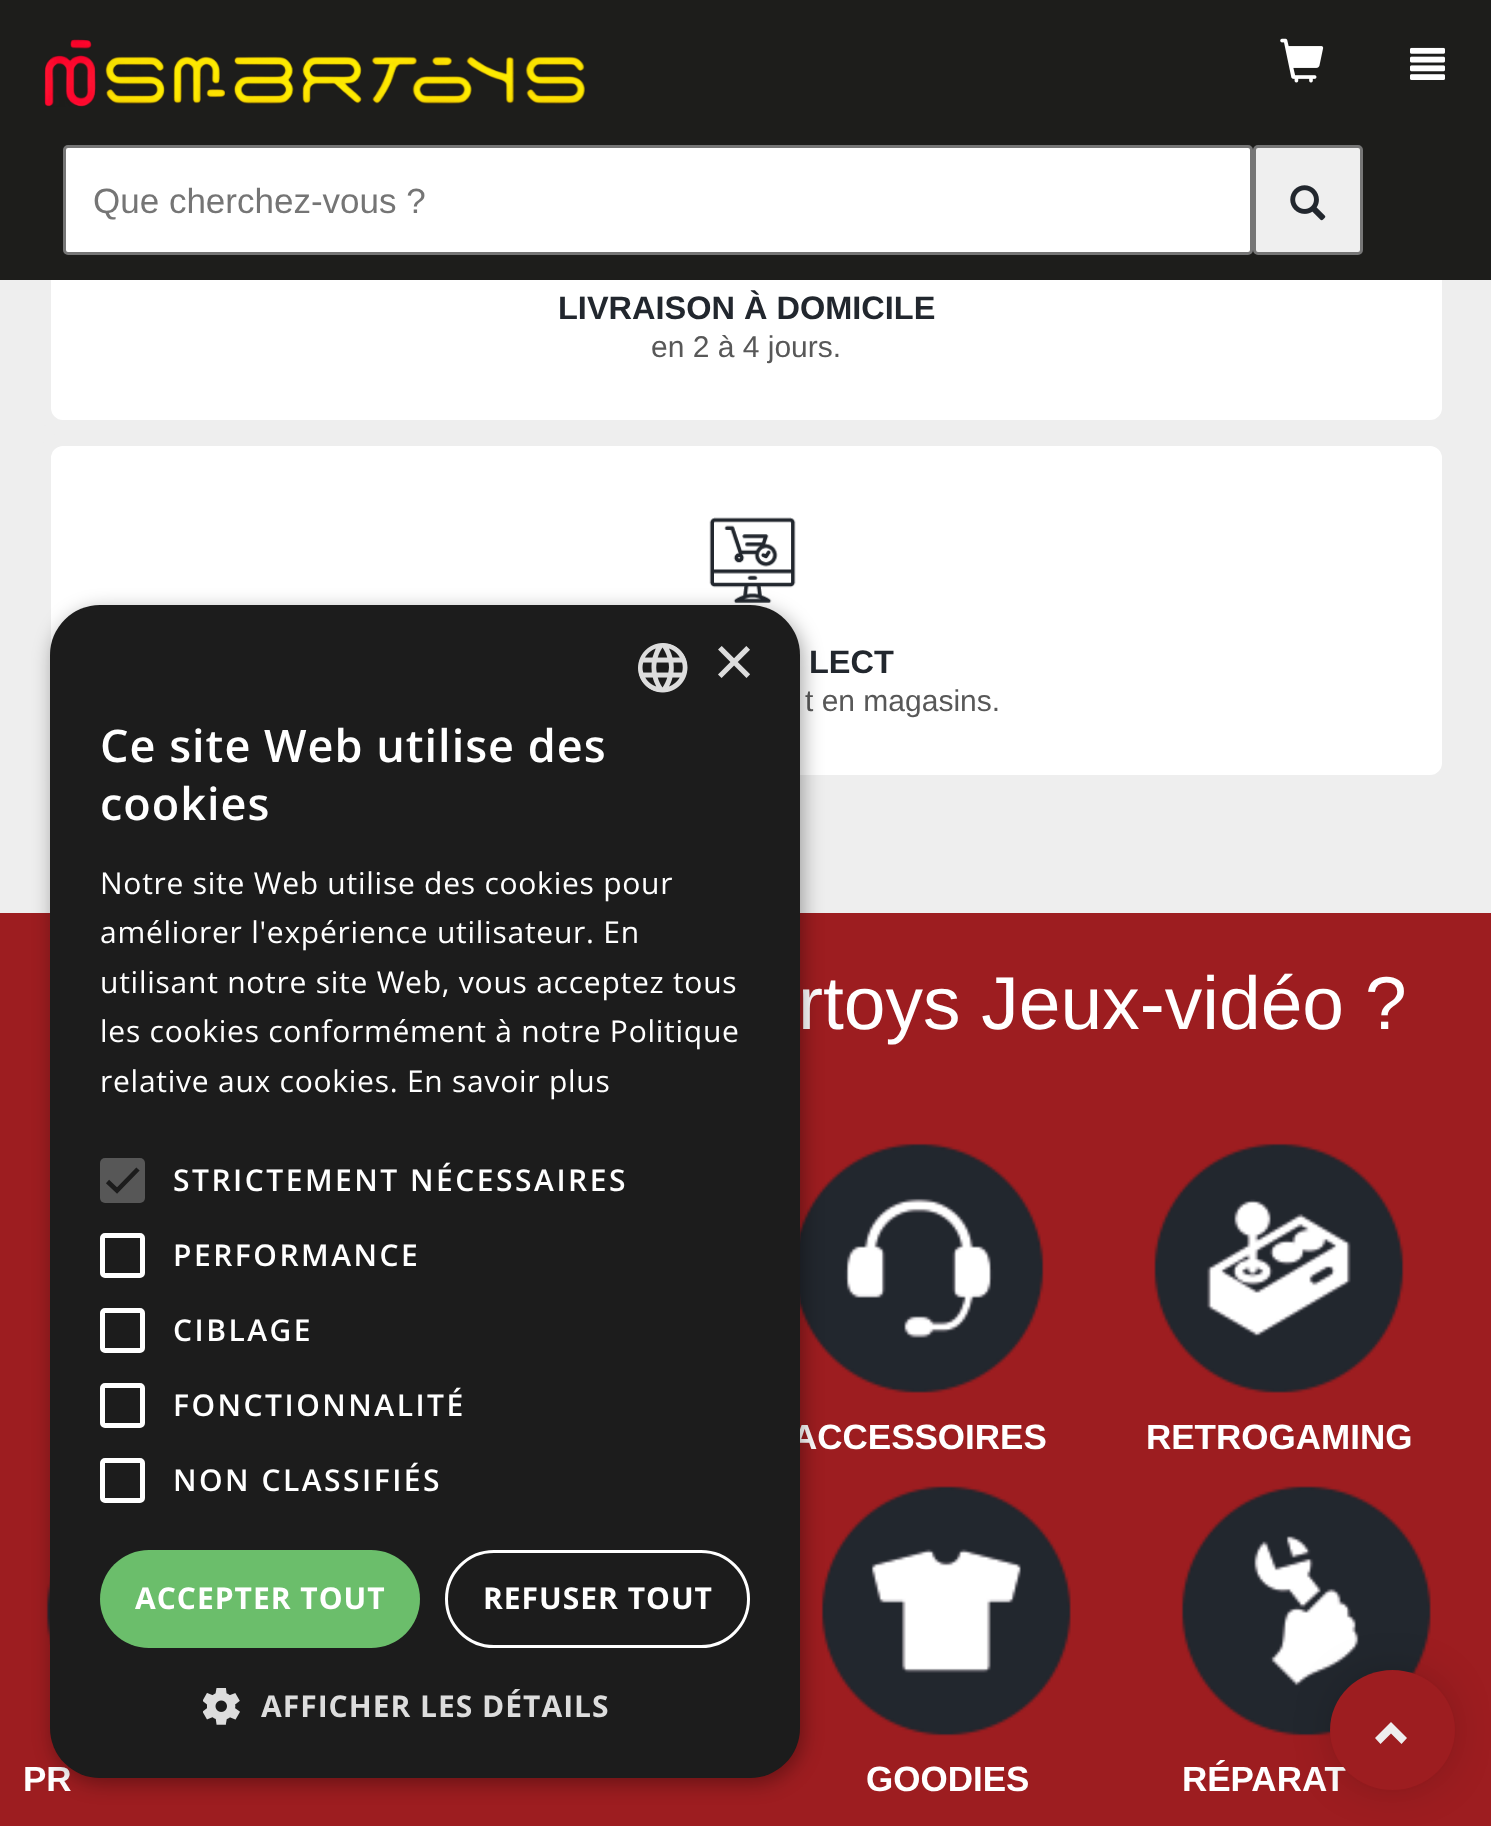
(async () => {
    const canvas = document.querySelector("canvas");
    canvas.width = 1491;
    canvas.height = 1826;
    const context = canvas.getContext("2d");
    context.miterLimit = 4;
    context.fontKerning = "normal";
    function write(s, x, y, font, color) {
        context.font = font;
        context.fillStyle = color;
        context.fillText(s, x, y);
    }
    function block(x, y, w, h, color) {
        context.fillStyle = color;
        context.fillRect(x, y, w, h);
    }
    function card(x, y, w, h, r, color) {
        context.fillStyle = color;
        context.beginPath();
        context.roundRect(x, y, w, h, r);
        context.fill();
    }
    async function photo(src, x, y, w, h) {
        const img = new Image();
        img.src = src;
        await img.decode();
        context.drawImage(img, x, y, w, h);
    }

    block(0, 0, 1491, 1826, "rgb(238, 238, 238)");
    context.fillStyle = "rgb(255, 255, 255)";
    context.beginPath();
    context.roundRect(44.5, 86.5, 1404, 340, 18.5);
    context.fill();
    context.strokeStyle = "rgb(238, 238, 238)";
    context.lineWidth = 13;
    context.stroke();
    block(0, 0, 1491, 280, "rgb(29, 29, 27)");
    await photo("media/1.png", 44, 39, 541, 68);
    await photo("media/2.png", 1280, 38, 44, 45);
    await photo("media/3.png", 1410, 47, 35, 33);
    context.fillStyle = "rgb(255, 255, 255)";
    context.beginPath();
    context.roundRect(64.5, 146.5, 1187, 107, 3.5);
    context.fill();
    context.strokeStyle = "rgb(118, 118, 118)";
    context.lineWidth = 3;
    context.stroke();
    write("Que cherchez-vous ?", 93, 213, "35px Liberation Sans", "rgb(117, 117, 117)");
    context.fillStyle = "rgb(239, 239, 239)";
    context.beginPath();
    context.roundRect(1254.5, 146.5, 107, 107, 3.5);
    context.fill();
    context.stroke();
    await photo("media/4.png", 1290, 185, 36, 36);
    write("LIVRAISON À DOMICILE", 558, 319, "bold 32.5px Liberation Sans", "rgb(34, 39, 46)");
    write("en 2 à 4 jours.", 651, 357, "30px Liberation Sans", "rgb(88, 88, 88)");
    context.fillStyle = "rgb(255, 255, 255)";
    context.beginPath();
    context.roundRect(44.5, 439.5, 1404, 342, 18.5);
    context.fill();
    context.strokeStyle = "rgb(238, 238, 238)";
    context.lineWidth = 13;
    context.stroke();
    await photo("media/5.png", 709, 517, 87, 86);
    write("LECT", 809, 673, "bold 32.5px Liberation Sans", "rgb(34, 39, 46)");
    write("t en magasins.", 805, 711, "30px Liberation Sans", "rgb(88, 88, 88)");
    block(0, 913, 1491, 913, "rgb(157, 29, 32)");
    write("rtoys Jeux-vidéo ?", 798, 1029, "75px Liberation Sans", "rgb(255, 255, 255)");
    await photo("media/6.png", 800, 1143, 244, 250);
    write("ACCESSOIRES", 792, 1449, "bold 35px Liberation Sans", "rgb(255, 255, 255)");
    await photo("media/7.png", 1154, 1143, 250, 250);
    write("RETROGAMING", 1146, 1449, "bold 35px Liberation Sans", "rgb(255, 255, 255)");
    await photo("media/8.png", 46, 1576, 4, 69);
    write("PR", 23, 1791, "bold 35px Liberation Sans", "rgb(255, 255, 255)");
    await photo("media/9.png", 821, 1486, 250, 250);
    write("GOODIES", 866, 1791, "bold 35px Liberation Sans", "rgb(255, 255, 255)");
    await photo("media/10.png", 1181, 1486, 250, 250);
    write("RÉPARAT", 1182, 1791, "bold 35px Liberation Sans", "rgb(255, 255, 255)");
    context.fillStyle = "rgba(0, 0, 0, 0.35)";
    context.filter = "blur(10px)";
    context.beginPath();
    context.roundRect(53, 610, 750, 1173, 50);
    context.fill();
    context.filter = "none";
    card(50, 605, 750, 1173, 50, "rgb(28, 28, 28)");
    await photo("media/11.png", 638, 643, 50, 50);
    write("×", 713, 686, "72px Liberation Sans", "rgb(221, 221, 221)");
    context.letterSpacing = "1px";
    write("Ce site Web utilise des", 100, 762, "600 45px Open Sans", "rgb(255, 255, 255)");
    write("cookies", 100, 820, "600 45px Open Sans", "rgb(255, 255, 255)");
    context.letterSpacing = "0.75px";
    write("Notre site Web utilise des cookies pour", 100, 894, "30px Open Sans", "rgb(255, 255, 255)");
    write("améliorer l'expérience utilisateur. En", 100, 943, "30px Open Sans", "rgb(255, 255, 255)");
    write("utilisant notre site Web, vous acceptez tous", 100, 993, "30px Open Sans", "rgb(255, 255, 255)");
    write("les cookies conformément à notre Politique", 100, 1042, "30px Open Sans", "rgb(255, 255, 255)");
    write("relative aux cookies. En savoir plus", 100, 1092, "30px Open Sans", "rgb(255, 255, 255)");
    card(100, 1158, 45, 45, 5, "rgb(87, 87, 87)");
    context.beginPath();
    context.moveTo(107.5, 1181.5);
    context.lineTo(117, 1190.5);
    context.lineTo(138, 1169);
    context.strokeStyle = "rgb(28, 28, 28)";
    context.lineWidth = 4.6;
    context.stroke();
    context.letterSpacing = "2.5px";
    write("STRICTEMENT NÉCESSAIRES", 173, 1191, "600 30px Open Sans", "rgb(255, 255, 255)");
    context.beginPath();
    context.roundRect(102.5, 1235.5, 40, 40, 2.5);
    context.strokeStyle = "rgb(255, 255, 255)";
    context.lineWidth = 5;
    context.stroke();
    write("PERFORMANCE", 173, 1266, "600 30px Open Sans", "rgb(255, 255, 255)");
    context.beginPath();
    context.roundRect(102.5, 1310.5, 40, 40, 2.5);
    context.stroke();
    write("CIBLAGE", 173, 1341, "600 30px Open Sans", "rgb(255, 255, 255)");
    context.beginPath();
    context.roundRect(102.5, 1385.5, 40, 40, 2.5);
    context.stroke();
    write("FONCTIONNALITÉ", 173, 1416, "600 30px Open Sans", "rgb(255, 255, 255)");
    context.beginPath();
    context.roundRect(102.5, 1460.5, 40, 40, 2.5);
    context.stroke();
    write("NON CLASSIFIÉS", 173, 1491, "600 30px Open Sans", "rgb(255, 255, 255)");
    card(100, 1550, 320, 98, 49, "rgb(107, 190, 107)");
    context.letterSpacing = "1px";
    write("ACCEPTER TOUT", 135, 1609, "bold 30px Open Sans", "rgb(255, 255, 255)");
    context.beginPath();
    context.roundRect(446.5, 1551.5, 302, 95, 47.5);
    context.lineWidth = 3;
    context.stroke();
    write("REFUSER TOUT", 483, 1609, "bold 30px Open Sans", "rgb(255, 255, 255)");
    await photo("media/12.png", 203, 1688, 37, 37);
    write("AFFICHER LES DÉTAILS", 261, 1717, "bold 30px Open Sans", "rgb(221, 221, 221)");
    context.fillStyle = "rgba(0, 0, 0, 0.37)";
    context.filter = "blur(25px)";
    context.beginPath();
    context.roundRect(1345, 1685, 95, 90, 45);
    context.fill();
    context.filter = "none";
    context.fillStyle = "rgb(157, 29, 32)";
    context.beginPath();
    context.ellipse(1392.5, 1730, 62.5, 60, 0, 0, Math.PI * 2);
    context.fill();
    context.fillStyle = "rgb(238, 238, 238)";
    context.beginPath();
    context.moveTo(1407, 1738);
    context.lineTo(1401.5, 1744);
    context.lineTo(1391, 1733.5);
    context.lineTo(1380.5, 1744);
    context.lineTo(1375, 1738);
    context.lineTo(1391, 1722);
    context.closePath();
    context.fill();
})();
